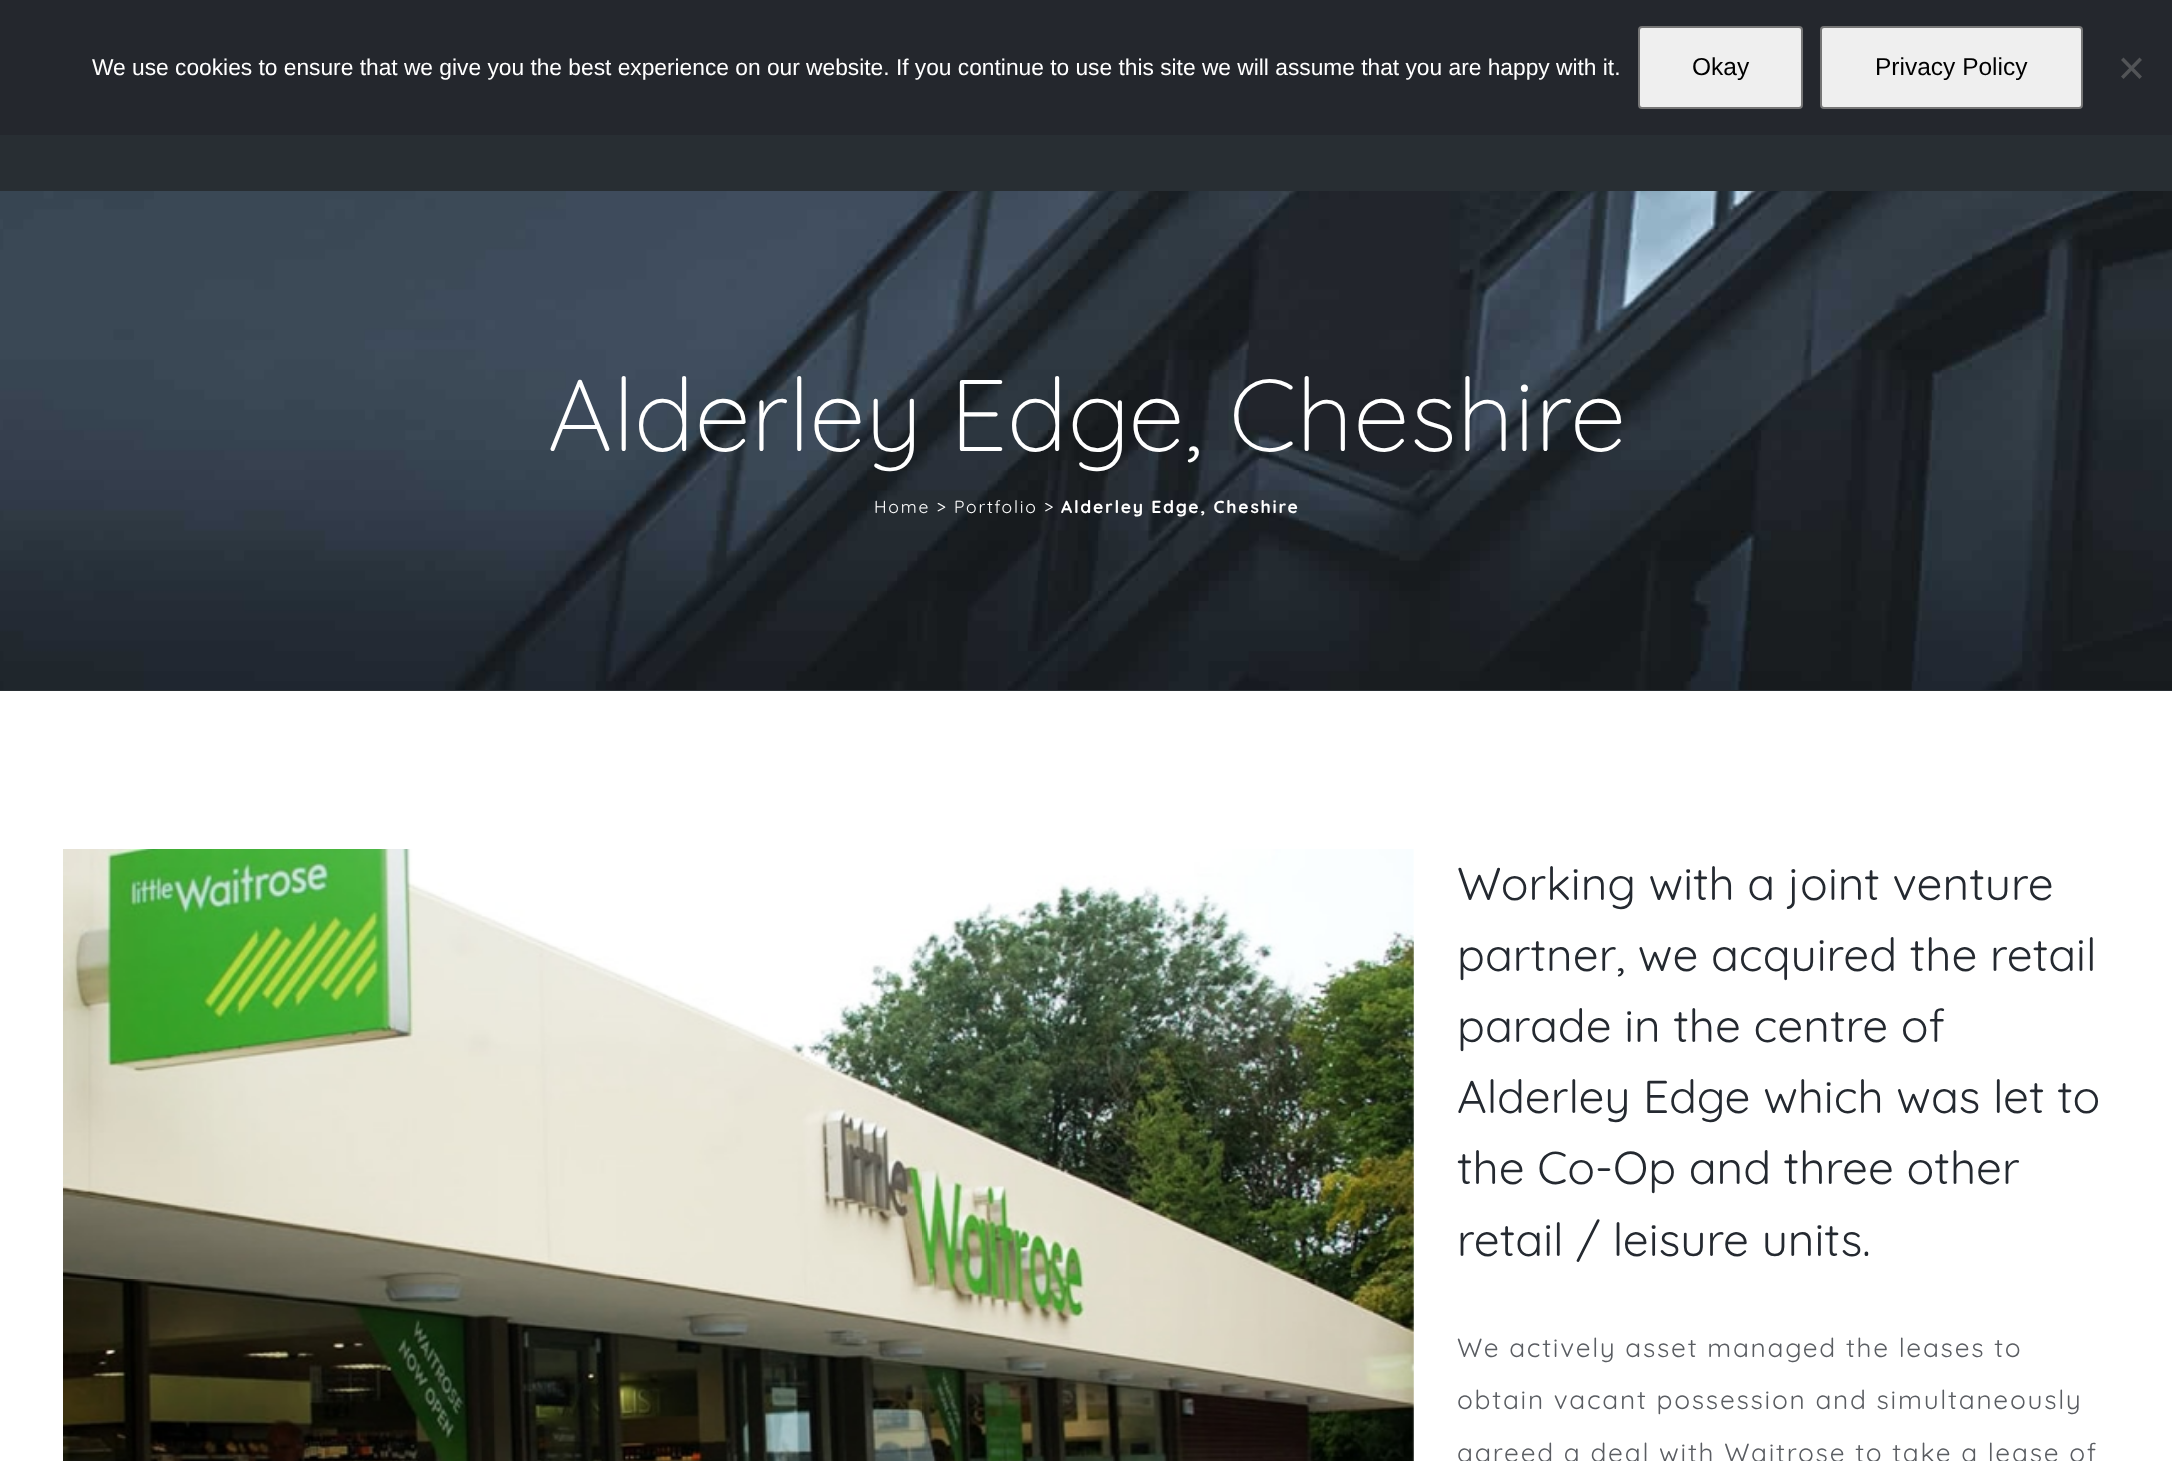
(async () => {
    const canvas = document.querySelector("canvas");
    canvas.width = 2172;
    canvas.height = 1461;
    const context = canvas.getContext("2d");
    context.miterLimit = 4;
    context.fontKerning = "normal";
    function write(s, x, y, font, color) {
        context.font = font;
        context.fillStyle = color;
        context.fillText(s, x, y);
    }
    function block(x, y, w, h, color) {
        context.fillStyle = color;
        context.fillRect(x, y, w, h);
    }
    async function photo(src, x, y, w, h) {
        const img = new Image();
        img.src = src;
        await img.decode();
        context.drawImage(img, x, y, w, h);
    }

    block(0, 0, 2172, 1461, "rgb(255, 255, 255)");
    block(0, 0, 2172, 135, "rgb(36, 39, 45)");
    write("We use cookies to ensure that we give you the best experience on our website. If you continue to use this site we will assume that you are happy with it.", 92, 75, "22.75px Liberation Sans", "rgb(255, 255, 255)");
    context.fillStyle = "rgb(239, 239, 239)";
    context.beginPath();
    context.roundRect(1639, 27, 163, 81, 3);
    context.fill();
    context.strokeStyle = "rgb(118, 118, 118)";
    context.lineWidth = 2;
    context.stroke();
    write("Okay", 1692, 75, "24.5px Liberation Sans", "rgb(0, 0, 0)");
    context.fillStyle = "rgb(239, 239, 239)";
    context.beginPath();
    context.roundRect(1821, 27, 261, 81, 3);
    context.fill();
    context.stroke();
    write("Privacy Policy", 1875, 75, "24.5px Liberation Sans", "rgb(0, 0, 0)");
    context.fillStyle = "rgb(82, 84, 87)";
    context.beginPath();
    context.moveTo(2139.5, 57.5);
    context.lineTo(2142, 60);
    context.lineTo(2123.5, 79);
    context.lineTo(2121, 76.5);
    context.closePath();
    context.fill();
    context.beginPath();
    context.moveTo(2121, 60);
    context.lineTo(2123.5, 57.5);
    context.lineTo(2142, 76.5);
    context.lineTo(2139.5, 79);
    context.closePath();
    context.fill();
    await photo("media/1.png", 0, 191, 2172, 499);
    block(0, 135, 2172, 56, "rgb(40, 46, 51)");
    block(0, 690, 2172, 1, "rgb(40, 46, 51)");
    write("Alderley Edge, Cheshire", 547, 451, "300 101.5px Quicksand", "rgb(255, 255, 255)");
    context.letterSpacing = "1.75px";
    write("Home > Portfolio >", 874, 513, "17.5px Quicksand", "rgb(255, 255, 255)");
    write("Alderley Edge, Cheshire", 1061, 513, "bold 17.5px Quicksand", "rgb(255, 255, 255)");
    await photo("media/2.png", 63, 849, 1351, 612);
    context.letterSpacing = "0px";
    write("Working with a joint venture", 1457, 900, "46px Quicksand", "rgb(36, 41, 48)");
    write("partner, we acquired the retail", 1457, 971, "46px Quicksand", "rgb(36, 41, 48)");
    write("parade in the centre of", 1457, 1042, "46px Quicksand", "rgb(36, 41, 48)");
    write("Alderley Edge which was let to", 1457, 1113, "46px Quicksand", "rgb(36, 41, 48)");
    write("the Co-Op and three other", 1457, 1184, "46px Quicksand", "rgb(36, 41, 48)");
    write("retail / leisure units.", 1457, 1256, "46px Quicksand", "rgb(36, 41, 48)");
    context.letterSpacing = "1.75px";
    write("We actively asset managed the leases to", 1457, 1357, "26.25px Quicksand", "rgb(90, 93, 98)");
    write("obtain vacant possession and simultaneously", 1457, 1409, "26.25px Quicksand", "rgb(90, 93, 98)");
    write("agreed a deal with Waitrose to take a lease of", 1457, 1462, "26.25px Quicksand", "rgb(90, 93, 98)");
})();
